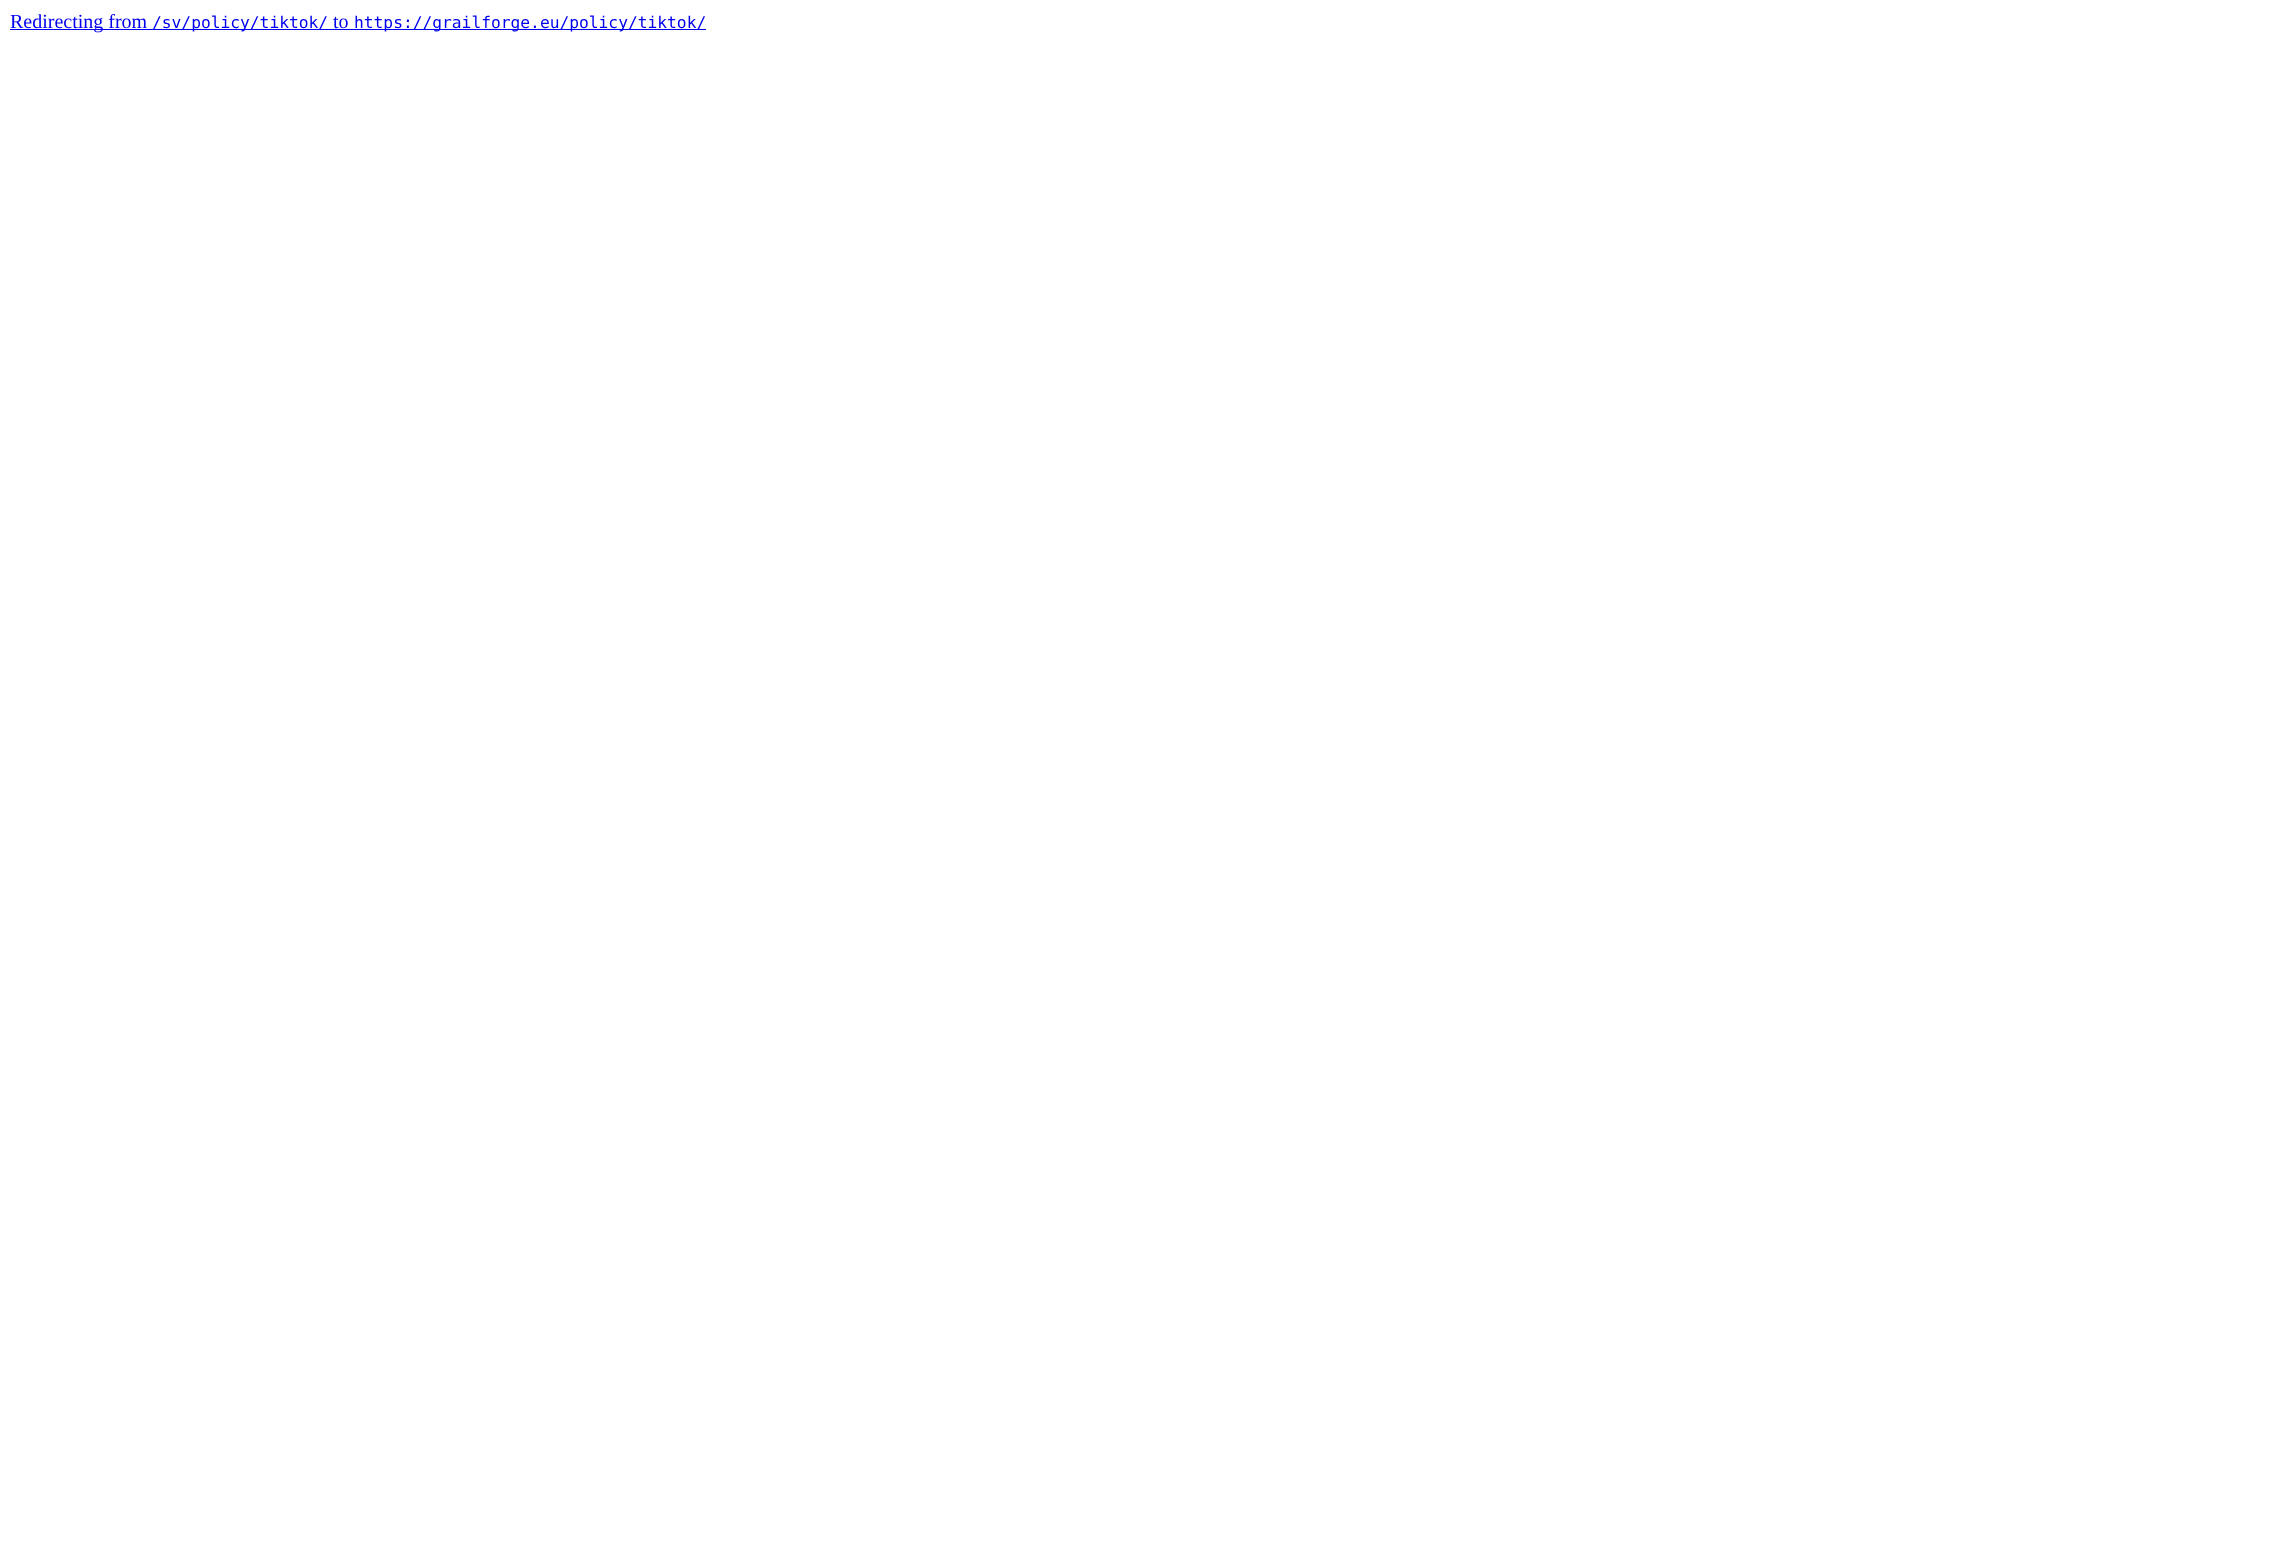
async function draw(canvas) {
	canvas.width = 2294;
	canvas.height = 1557;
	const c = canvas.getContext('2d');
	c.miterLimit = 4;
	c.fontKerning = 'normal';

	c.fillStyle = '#fff';
	c.fillRect(0, 0, 2294, 1557);
	c.fillStyle = '#00e';
	c.fillRect(10, 29, 696, 1);
	c.font = '20px Liberation Serif';
	c.fillText('Redirecting from', 10, 28);
	c.font = '16.25px DejaVu Sans Mono';
	c.fillText('/sv/policy/tiktok/', 152, 28);
	c.font = '20px Liberation Serif';
	c.fillText('to', 333, 28);
	c.font = '16.25px DejaVu Sans Mono';
	c.fillText('https://grailforge.eu/policy/tiktok/', 354, 28);
}

draw(document.querySelector('canvas'));
